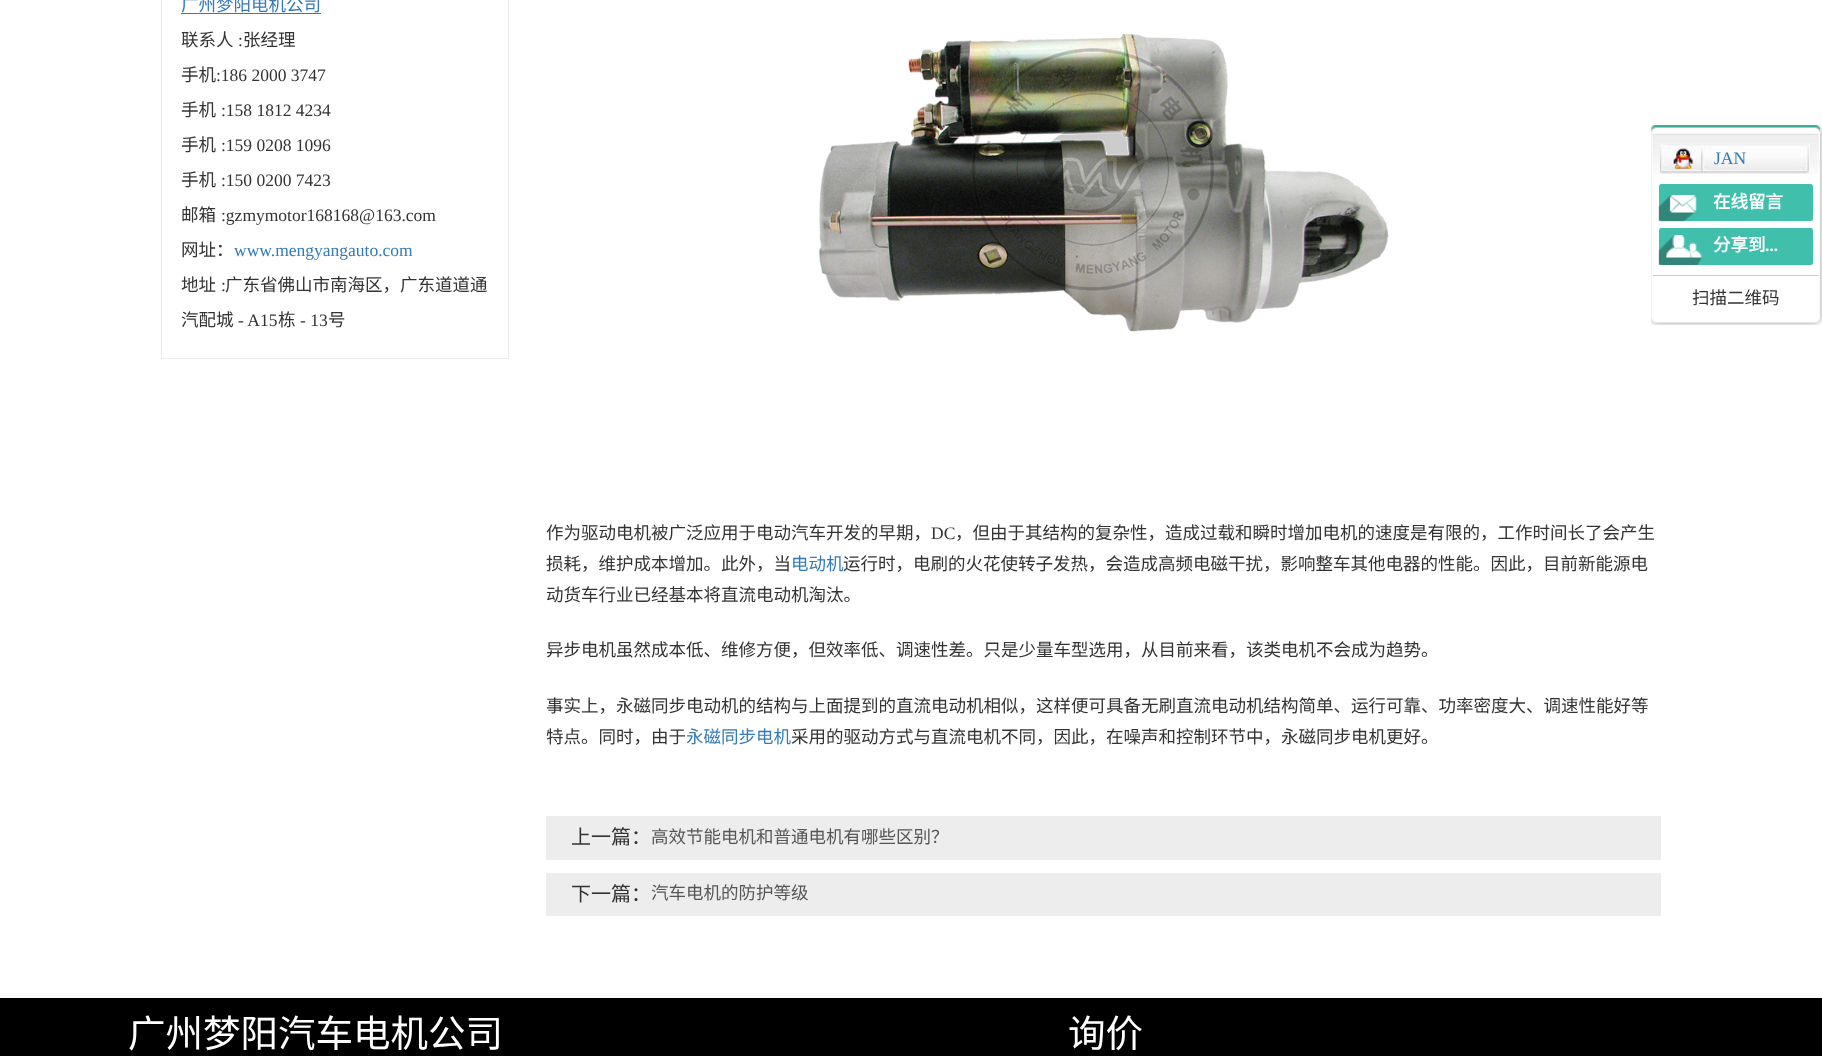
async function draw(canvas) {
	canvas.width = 1822;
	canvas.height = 1056;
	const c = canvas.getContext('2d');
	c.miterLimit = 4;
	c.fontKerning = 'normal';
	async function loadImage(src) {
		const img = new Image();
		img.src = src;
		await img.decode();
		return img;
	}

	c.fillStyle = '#fff';
	c.fillRect(0, 0, 1822, 1056);
	c.strokeStyle = '#ebebeb';
	c.strokeRect(161.5, -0.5, 347, 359);
	c.font = '17.5px Noto Sans CJK SC';
	c.fillStyle = '#337ab7';
	c.fillText('广州梦阳电机公司', 181, 11);
	c.fillRect(181, 13, 140, 1);
	c.fillStyle = '#333';
	c.fillText('联系人', 181, 46);
	c.font = '17.5px Liberation Serif';
	c.fillText(':', 238, 46);
	c.font = '17.5px Noto Sans CJK SC';
	c.fillText('张经理', 243, 46);
	c.fillText('手机', 181, 81);
	c.font = '17.5px Liberation Serif';
	c.fillText(':186 2000 3747', 216, 81);
	c.font = '17.5px Noto Sans CJK SC';
	c.fillText('手机', 181, 116);
	c.font = '17.5px Liberation Serif';
	c.fillText(':158 1812 4234', 221, 116);
	c.font = '17.5px Noto Sans CJK SC';
	c.fillText('手机', 181, 151);
	c.font = '17.5px Liberation Serif';
	c.fillText(':159 0208 1096', 221, 151);
	c.font = '17.5px Noto Sans CJK SC';
	c.fillText('手机', 181, 186);
	c.font = '17.5px Liberation Serif';
	c.fillText(':150 0200 7423', 221, 186);
	c.font = '17.5px Noto Sans CJK SC';
	c.fillText('邮箱', 181, 221);
	c.font = '17.5px Liberation Serif';
	c.fillText(':gzmymotor168168@163.com', 221, 221);
	c.font = '17.5px Noto Sans CJK SC';
	c.fillText('网址：', 181, 256);
	c.font = '17.5px Liberation Serif';
	c.fillStyle = '#337ab7';
	c.fillText('www.mengyangauto.com', 234, 256);
	c.font = '17.5px Noto Sans CJK SC';
	c.fillStyle = '#333';
	c.fillText('地址', 181, 291);
	c.font = '17.5px Liberation Serif';
	c.fillText(':', 221, 291);
	c.font = '17.5px Noto Sans CJK SC';
	c.fillText('广东省佛山市南海区，广东道道通', 225, 291);
	c.fillText('汽配城', 181, 326);
	c.font = '17.5px Liberation Serif';
	c.fillText('- A15', 238, 326);
	c.font = '17.5px Noto Sans CJK SC';
	c.fillText('栋', 278, 326);
	c.font = '17.5px Liberation Serif';
	c.fillText('- 13', 300, 326);
	c.font = '17.5px Noto Sans CJK SC';
	c.fillText('号', 328, 326);
	c.drawImage(await loadImage('img1.png'), 818, 34, 571, 298);
	c.fillText('作为驱动电机被广泛应用于电动汽车开发的早期，', 546, 539);
	c.font = '17.5px Liberation Serif';
	c.fillText('DC', 931, 539);
	c.font = '17.5px Noto Sans CJK SC';
	c.fillText('，但由于其结构的复杂性，造成过载和瞬时增加电机的速度是有限的，工作时间长了会产生', 955, 539);
	c.fillText('损耗，维护成本增加。此外，当', 546, 570);
	c.fillStyle = '#337ab7';
	c.fillText('电动机', 791, 570);
	c.fillStyle = '#333';
	for (const [text, x, y] of [
		['运行时，电刷的火花使转子发热，会造成高频电磁干扰，影响整车其他电器的性能。因此，目前新能源电', 843, 570],
		['动货车行业已经基本将直流电动机淘汰。', 546, 601],
		['异步电机虽然成本低、维修方便，但效率低、调速性差。只是少量车型选用，从目前来看，该类电机不会成为趋势。', 546, 656],
		['事实上，永磁同步电动机的结构与上面提到的直流电动机相似，这样便可具备无刷直流电动机结构简单、运行可靠、功率密度大、调速性能好等', 546, 712],
		['特点。同时，由于', 546, 743],
	]) {
		c.fillText(text, x, y);
	}
	c.fillStyle = '#337ab7';
	c.fillText('永磁同步电机', 686, 743);
	c.fillStyle = '#333';
	c.fillText('采用的驱动方式与直流电机不同，因此，在噪声和控制环节中，永磁同步电机更好。', 791, 743);
	c.fillStyle = '#ededed';
	c.fillRect(546, 816, 1115, 44);
	c.font = '20px Noto Sans CJK SC';
	c.fillStyle = '#333';
	c.fillText('上一篇：', 571, 844);
	c.font = '17.5px Noto Sans CJK SC';
	c.fillStyle = '#565656';
	c.fillText('高效节能电机和普通电机有哪些区别？', 651, 843);
	c.fillStyle = '#ededed';
	c.fillRect(546, 873, 1115, 43);
	c.font = '20px Noto Sans CJK SC';
	c.fillStyle = '#333';
	c.fillText('下一篇：', 571, 901);
	c.font = '17.5px Noto Sans CJK SC';
	c.fillStyle = '#565656';
	c.fillText('汽车电机的防护等级', 651, 899);
	c.drawImage(await loadImage('img2.png'), 1651, 125, 171, 9);
	c.drawImage(await loadImage('img3.png'), 1651, 133, 171, 182);
	c.drawImage(await loadImage('img4.png'), 1652, 133, 167, 41);
	c.drawImage(await loadImage('img5.png'), 1660, 144, 150, 30);
	c.drawImage(await loadImage('img6.png'), 1673, 148, 20, 21);
	c.font = '17.5px Liberation Serif';
	c.fillStyle = '#337ab7';
	c.fillText('JAN', 1714, 164);
	c.fillStyle = '#40c0ac';
	c.beginPath();
	c.roundRect(1659, 184, 154, 37, 2.5);
	c.fill();
	c.drawImage(await loadImage('img7.png'), 1658, 195, 39, 27);
	c.font = 'bold 17.5px Noto Sans CJK SC';
	c.fillStyle = '#fff';
	c.fillText('在线留言', 1713, 208);
	c.fillStyle = '#40c0ac';
	c.beginPath();
	c.roundRect(1659, 228, 154, 37, 2.5);
	c.fill();
	c.drawImage(await loadImage('img8.png'), 1658, 235, 44, 30);
	c.fillStyle = '#fff';
	c.fillText('分享到', 1713, 251);
	c.font = 'bold 17.5px Liberation Serif';
	c.fillText('...', 1765, 251);
	c.fillStyle = '#ccc';
	c.fillRect(1653, 275, 166, 1);
	c.font = '17.5px Noto Sans CJK SC';
	c.fillStyle = '#333';
	c.fillText('扫描二维码', 1692, 304);
	c.drawImage(await loadImage('img9.png'), 1651, 315, 171, 10);
	c.fillStyle = '#000';
	c.fillRect(0, 998, 1822, 58);
	c.font = '37.5px Noto Sans CJK SC';
	c.fillStyle = '#fff';
	c.fillText('广州梦阳汽车电机公司', 128, 1047);
	c.fillText('询价', 1068, 1047);
}

draw(document.querySelector('canvas'));
